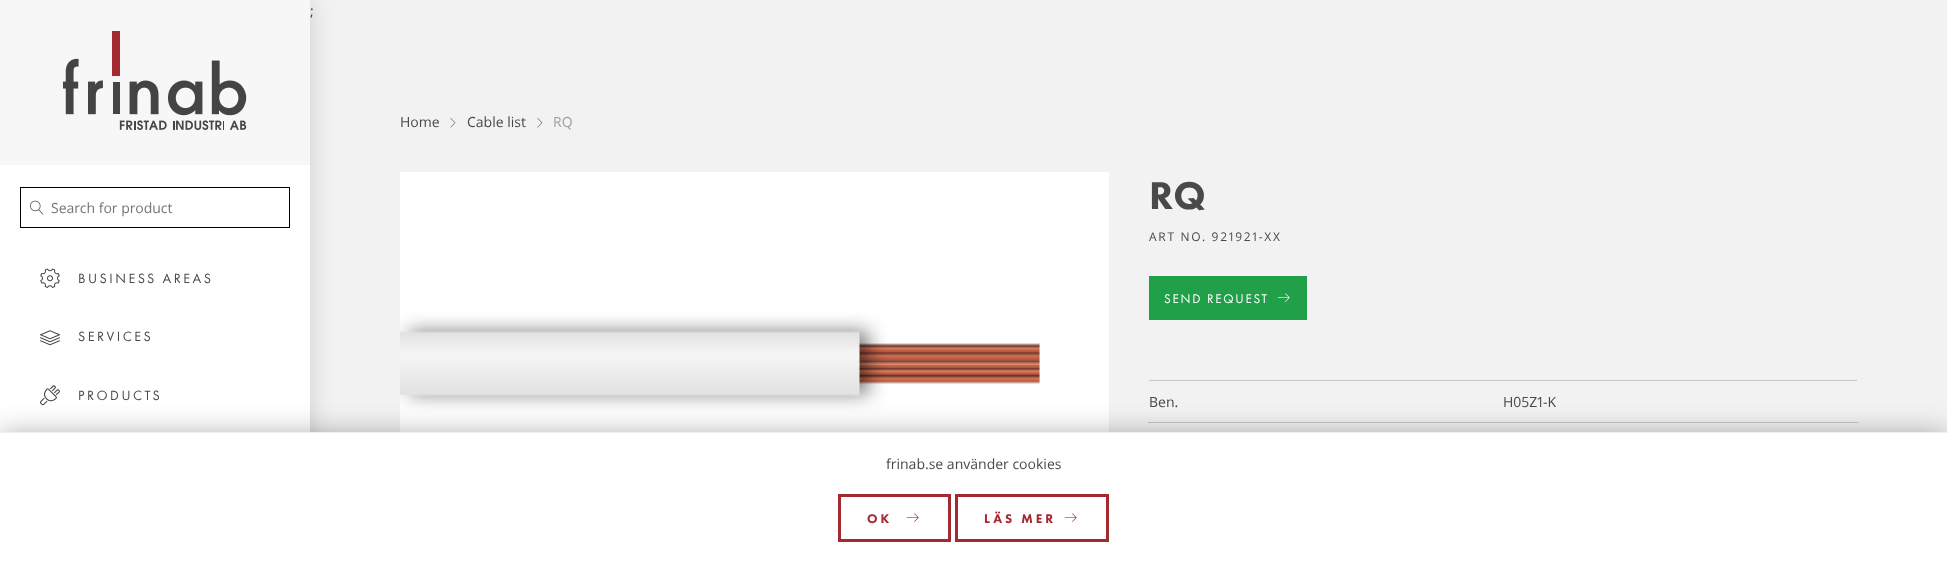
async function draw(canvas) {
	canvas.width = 1947;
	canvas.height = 562;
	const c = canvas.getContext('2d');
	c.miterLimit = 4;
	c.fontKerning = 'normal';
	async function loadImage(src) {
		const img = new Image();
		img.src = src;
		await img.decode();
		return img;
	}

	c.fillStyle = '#f2f2f2';
	c.fillRect(0, 0, 1947, 562);
	c.font = '14px Open Sans';
	c.fillStyle = '#494949';
	c.fillText(';', 310, 16);
	c.fillStyle = '#00000026';
	c.filter = 'blur(12.5px)';
	c.beginPath();
	c.rect(0, 0, 310, 562);
	c.fill();
	c.filter = 'none';
	c.fillStyle = '#fff';
	c.fillRect(0, 165, 310, 267);
	c.fillStyle = '#f7f7f7';
	c.fillRect(0, 0, 310, 165);
	c.drawImage(await loadImage('img1.png'), 63, 31, 184, 99);
	c.strokeStyle = '#000';
	c.strokeRect(20.5, 187.5, 269, 40);
	c.drawImage(await loadImage('img2.png'), 30, 200, 14, 15);
	c.fillStyle = '#757575';
	c.fillText('Search for product', 51, 213);
	c.drawImage(await loadImage('img3.png'), 40, 268, 20, 20);
	c.letterSpacing = '2.5px';
	c.font = '14px Futura PT';
	c.fillStyle = '#494949';
	c.fillText('BUSINESS AREAS', 78, 283);
	c.drawImage(await loadImage('img4.png'), 40, 330, 20, 16);
	c.fillText('SERVICES', 78, 341);
	c.drawImage(await loadImage('img5.png'), 40, 385, 20, 21);
	c.fillText('PRODUCTS', 78, 400);
	c.letterSpacing = '0px';
	c.font = '14px Open Sans';
	c.fillText('Home', 400, 127);
	c.drawImage(await loadImage('img6.png'), 450, 118, 6, 10);
	c.fillText('Cable list', 467, 127);
	c.drawImage(await loadImage('img6.png'), 537, 118, 6, 10);
	c.fillStyle = '#9e9e9e';
	c.fillText('RQ', 553, 127);
	c.drawImage(await loadImage('img7.png'), 400, 172, 709, 260);
	c.font = '900 40px Futura PT';
	c.fillStyle = '#494949';
	c.fillText('RQ', 1149, 209);
	c.letterSpacing = '1.7px';
	c.font = '12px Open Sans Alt';
	c.fillText('ART NO. 921921-XX', 1149, 241);
	c.fillStyle = '#21a04a';
	c.fillRect(1149, 276, 158, 44);
	c.letterSpacing = '1.75px';
	c.font = '13px Futura PT';
	c.fillStyle = '#fff';
	c.fillText('SEND REQUEST', 1164, 303);
	c.drawImage(await loadImage('img8.png'), 1277, 293, 13, 9);
	c.fillStyle = '#c6c6c6';
	c.fillRect(1149, 380, 708, 1);
	c.letterSpacing = '0px';
	c.font = '14px Open Sans';
	c.fillStyle = '#494949';
	c.fillText('Ben.', 1149, 407);
	c.fillStyle = '#c6c6c6';
	c.fillRect(1148, 422, 710, 1);
	c.font = '14px Open Sans Alt';
	c.fillStyle = '#494949';
	c.fillText('H05Z1-K', 1503, 407);
	c.fillStyle = '#00000066';
	c.filter = 'blur(15.5px)';
	c.beginPath();
	c.rect(0, 437, 1947, 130);
	c.fill();
	c.filter = 'none';
	c.fillStyle = '#fff';
	c.fillRect(0, 433, 1947, 129);
	c.fillStyle = '#efefef';
	c.fillRect(0, 432, 1947, 1);
	c.font = '14px Open Sans';
	c.fillStyle = '#494949';
	c.fillText('frinab.se använder cookies', 886, 469);
	c.strokeStyle = '#a42a32';
	c.lineWidth = 3;
	c.strokeRect(839.5, 495.5, 110, 45);
	c.letterSpacing = '3px';
	c.font = '900 13px Futura PT';
	c.fillStyle = '#a42a32';
	c.fillText('OK', 867, 523);
	c.drawImage(await loadImage('img9.png'), 906, 513, 13, 9);
	c.strokeRect(956.5, 495.5, 151, 45);
	c.fillText('LÄS MER', 984, 523);
	c.drawImage(await loadImage('img9.png'), 1064, 513, 13, 9);
}

draw(document.querySelector('canvas'));
